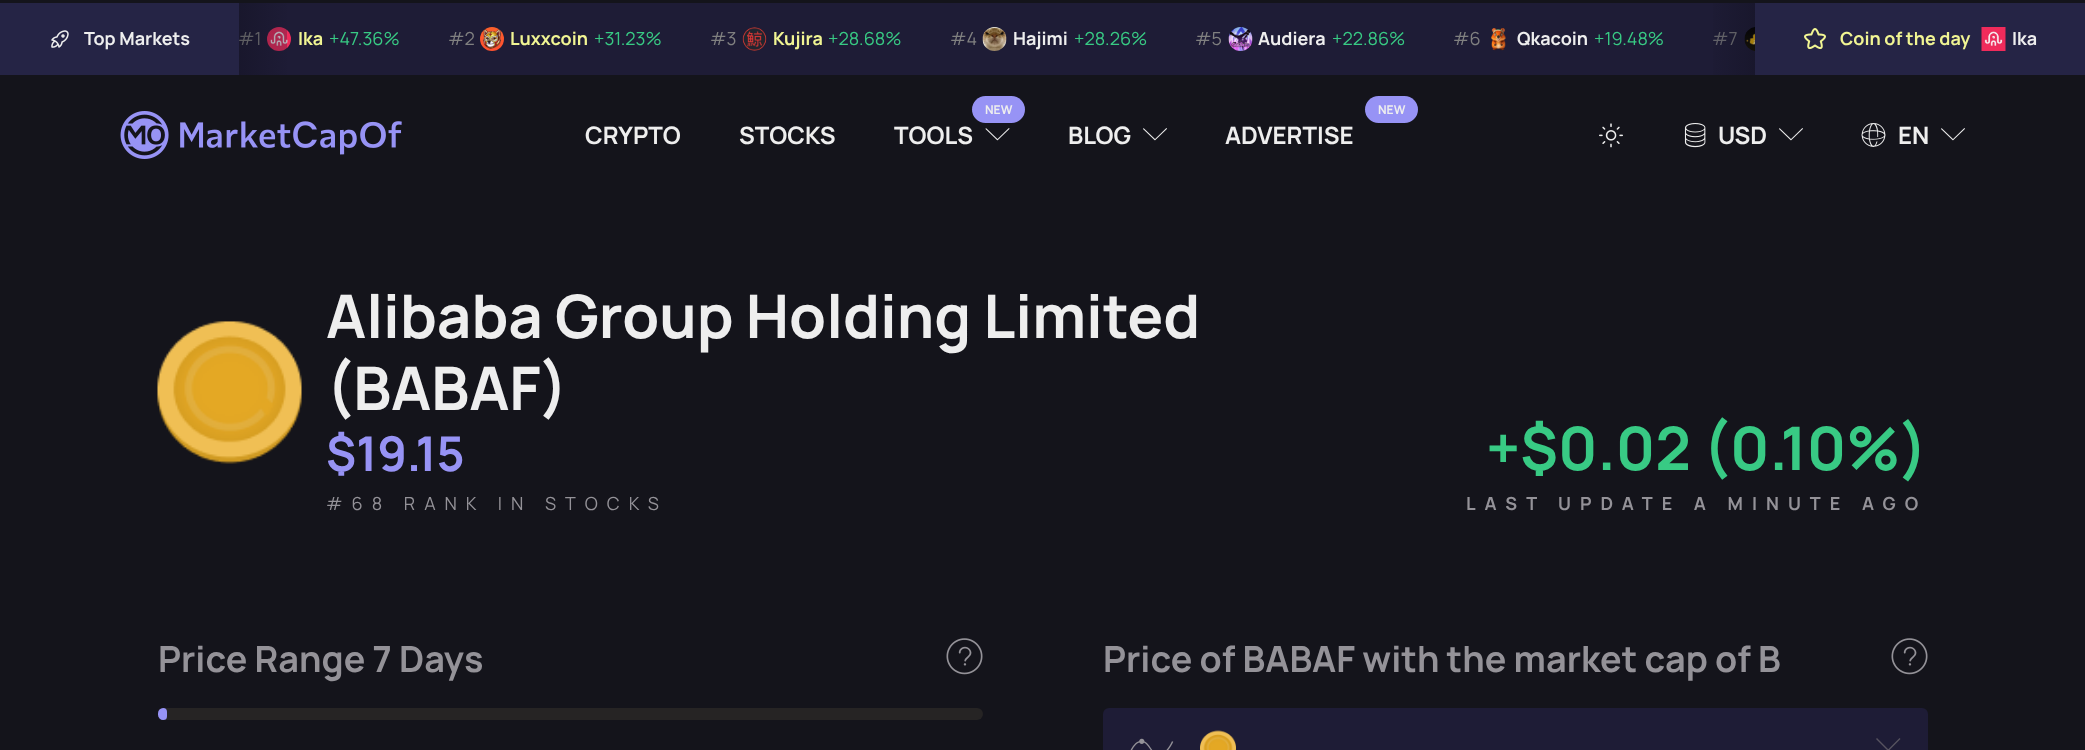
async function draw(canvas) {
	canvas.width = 2085;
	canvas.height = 750;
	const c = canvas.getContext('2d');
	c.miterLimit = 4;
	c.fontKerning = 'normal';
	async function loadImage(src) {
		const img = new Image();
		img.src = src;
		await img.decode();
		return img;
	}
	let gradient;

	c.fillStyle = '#14141b';
	c.fillRect(0, 0, 2085, 750);
	c.fillStyle = '#252445';
	c.fillRect(0, 3, 2085, 72);
	c.drawImage(await loadImage('img1.png'), 51, 30, 18, 18);
	c.font = '200 18px "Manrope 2"';
	c.fillStyle = '#eee';
	c.fillText('Top Markets', 84, 45);
	c.fillStyle = '#1e1c36';
	c.fillRect(239, 3, 1516, 72);
	c.font = '200 18px Manrope';
	c.fillStyle = '#808080';
	c.fillText('#1', 238, 45);
	c.drawImage(await loadImage('img2.png'), 267, 27, 24, 24);
	gradient = c.createLinearGradient(239, 39, 290, 39);
	gradient.addColorStop(0, '#0c0b164d');
	gradient.addColorStop(1, '#1e1c364d');
	c.fillStyle = gradient;
	c.fillRect(239, 3, 48, 72);
	c.font = '200 18px "Manrope 2"';
	c.fillStyle = '#f1f593';
	c.fillText('Ika', 298, 45);
	c.font = '200 18px Manrope';
	c.fillStyle = '#38ca84';
	c.fillText('+47.36%', 329, 45);
	c.fillStyle = '#808080';
	c.fillText('#2', 448, 45);
	c.drawImage(await loadImage('img3.png'), 480, 27, 24, 24);
	c.font = '200 18px "Manrope 2"';
	c.fillStyle = '#f1f593';
	c.fillText('Luxxcoin', 510, 45);
	c.font = '200 18px Manrope';
	c.fillStyle = '#38ca84';
	c.fillText('+31.23%', 594, 45);
	c.fillStyle = '#808080';
	c.fillText('#3', 710, 45);
	c.drawImage(await loadImage('img4.png'), 742, 27, 25, 24);
	c.font = '200 18px "Manrope 2"';
	c.fillStyle = '#f1f593';
	c.fillText('Kujira', 773, 45);
	c.font = '200 18px Manrope';
	c.fillStyle = '#38ca84';
	c.fillText('+28.68%', 828, 45);
	c.fillStyle = '#808080';
	c.fillText('#4', 950, 45);
	c.drawImage(await loadImage('img5.png'), 982, 27, 25, 24);
	c.font = '200 18px "Manrope 2"';
	c.fillStyle = '#eee';
	c.fillText('Hajimi', 1013, 45);
	c.font = '200 18px Manrope';
	c.fillStyle = '#38ca84';
	c.fillText('+28.26%', 1074, 45);
	c.fillStyle = '#808080';
	c.fillText('#5', 1195, 45);
	c.drawImage(await loadImage('img6.png'), 1228, 27, 25, 24);
	c.font = '200 18px "Manrope 2"';
	c.fillStyle = '#eee';
	c.fillText('Audiera', 1258, 45);
	c.font = '200 18px Manrope';
	c.fillStyle = '#38ca84';
	c.fillText('+22.86%', 1332, 45);
	c.fillStyle = '#808080';
	c.fillText('#6', 1453, 45);
	c.drawImage(await loadImage('img7.png'), 1491, 28, 15, 23);
	c.font = '200 18px "Manrope 2"';
	c.fillStyle = '#eee';
	c.fillText('Qkacoin', 1517, 45);
	c.font = '200 18px Manrope';
	c.fillStyle = '#38ca84';
	c.fillText('+19.48%', 1594, 45);
	c.fillStyle = '#808080';
	c.fillText('#7', 1712, 45);
	c.drawImage(await loadImage('img8.png'), 1744, 27, 11, 24);
	gradient = c.createLinearGradient(1756, 39, 1705, 39);
	gradient.addColorStop(0, '#0c0b164d');
	gradient.addColorStop(1, '#1e1c364d');
	c.fillStyle = gradient;
	c.fillRect(1713, 3, 42, 72);
	c.drawImage(await loadImage('img9.png'), 1804, 28, 22, 22);
	c.font = '200 18px "Manrope 2"';
	c.fillStyle = '#f1f593';
	c.fillText('Coin of the day', 1840, 45);
	c.drawImage(await loadImage('img10.png'), 1981, 27, 25, 24);
	c.fillStyle = '#eee';
	c.fillText('Ika', 2012, 45);
	c.drawImage(await loadImage('img11.png'), 120, 111, 282, 48);
	c.font = '200 24px "Manrope 2"';
	c.fillText('CRYPTO', 585, 144);
	c.fillText('STOCKS', 739, 144);
	c.fillStyle = '#9793f5';
	c.beginPath();
	c.roundRect(972, 96, 53, 27, 13.5);
	c.fill();
	c.font = '200 12px "Manrope 2"';
	c.fillStyle = '#eee';
	c.fillText('NEW', 985, 114);
	c.font = '200 24px "Manrope 2"';
	c.fillText('TOOLS', 894, 144);
	c.drawImage(await loadImage('img12.png'), 985, 128, 25, 13);
	c.fillText('BLOG', 1068, 144);
	c.drawImage(await loadImage('img13.png'), 1143, 128, 24, 13);
	c.fillStyle = '#9793f5';
	c.beginPath();
	c.roundRect(1365, 96, 53, 27, 13.5);
	c.fill();
	c.font = '200 12px "Manrope 2"';
	c.fillStyle = '#eee';
	c.fillText('NEW', 1378, 114);
	c.font = '200 24px "Manrope 2"';
	c.fillText('ADVERTISE', 1225, 144);
	c.drawImage(await loadImage('img14.png'), 1599, 123, 24, 25);
	c.drawImage(await loadImage('img15.png'), 1684, 123, 22, 25);
	c.fillText('USD', 1718, 144);
	c.drawImage(await loadImage('img13.png'), 1779, 128, 24, 13);
	c.drawImage(await loadImage('img16.png'), 1861, 123, 25, 24);
	c.fillText('EN', 1898, 144);
	c.drawImage(await loadImage('img13.png'), 1941, 128, 24, 13);
	c.drawImage(await loadImage('img17.png'), 157, 321, 145, 143);
	c.font = '200 60px "Manrope 2"';
	c.fillText('Alibaba Group Holding Limited', 326, 338);
	c.fillText('(BABAF)', 326, 410);
	c.font = '200 48px "Manrope 2"';
	c.fillStyle = '#9793f5';
	c.fillText('$19.15', 326, 471);
	c.letterSpacing = '9px';
	c.font = '200 18px Manrope';
	c.fillStyle = '#949298';
	c.fillText('#68 RANK IN STOCKS', 326, 510);
	c.letterSpacing = '0px';
	c.font = '200 60px "Manrope 2"';
	c.fillStyle = '#38ca84';
	c.fillText('+$0.02 (0.10%)', 1486, 470);
	c.letterSpacing = '9px';
	c.font = '200 18px "Manrope 2"';
	c.fillStyle = '#949298';
	c.fillText('LAST UPDATE A MINUTE AGO', 1466, 510);
	c.letterSpacing = '0px';
	c.font = '200 36px "Manrope 2"';
	c.fillText('Price Range 7 Days', 158, 672);
	c.drawImage(await loadImage('img18.png'), 946, 638, 37, 37);
	c.fillStyle = '#262424';
	c.beginPath();
	c.roundRect(158, 708, 825, 12, 6);
	c.fill();
	c.fillStyle = '#9793f5';
	c.beginPath();
	c.roundRect(158, 708, 9, 12, [6, 4.5, 4.5, 6]);
	c.fill();
	c.fillStyle = '#949298';
	c.fillText('Price of BABAF with the market cap of B', 1103, 672);
	c.drawImage(await loadImage('img18.png'), 1891, 638, 37, 37);
	c.fillStyle = '#1e1c36';
	c.beginPath();
	c.roundRect(1103, 708, 825, 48, 6);
	c.fill();
	c.drawImage(await loadImage('img19.png'), 1130, 738, 44, 12);
	c.drawImage(await loadImage('img20.png'), 1200, 730, 36, 20);
	c.fillStyle = '#56525f';
	c.beginPath();
	c.moveTo(1877, 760.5);
	c.lineTo(1899.5, 738);
	c.lineTo(1900.5, 739);
	c.lineTo(1878, 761.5);
	c.closePath();
	c.moveTo(1876, 739);
	c.lineTo(1877, 738);
	c.lineTo(1899.5, 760.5);
	c.lineTo(1898.5, 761.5);
	c.closePath();
	c.fill();
}

draw(document.querySelector('canvas'));
